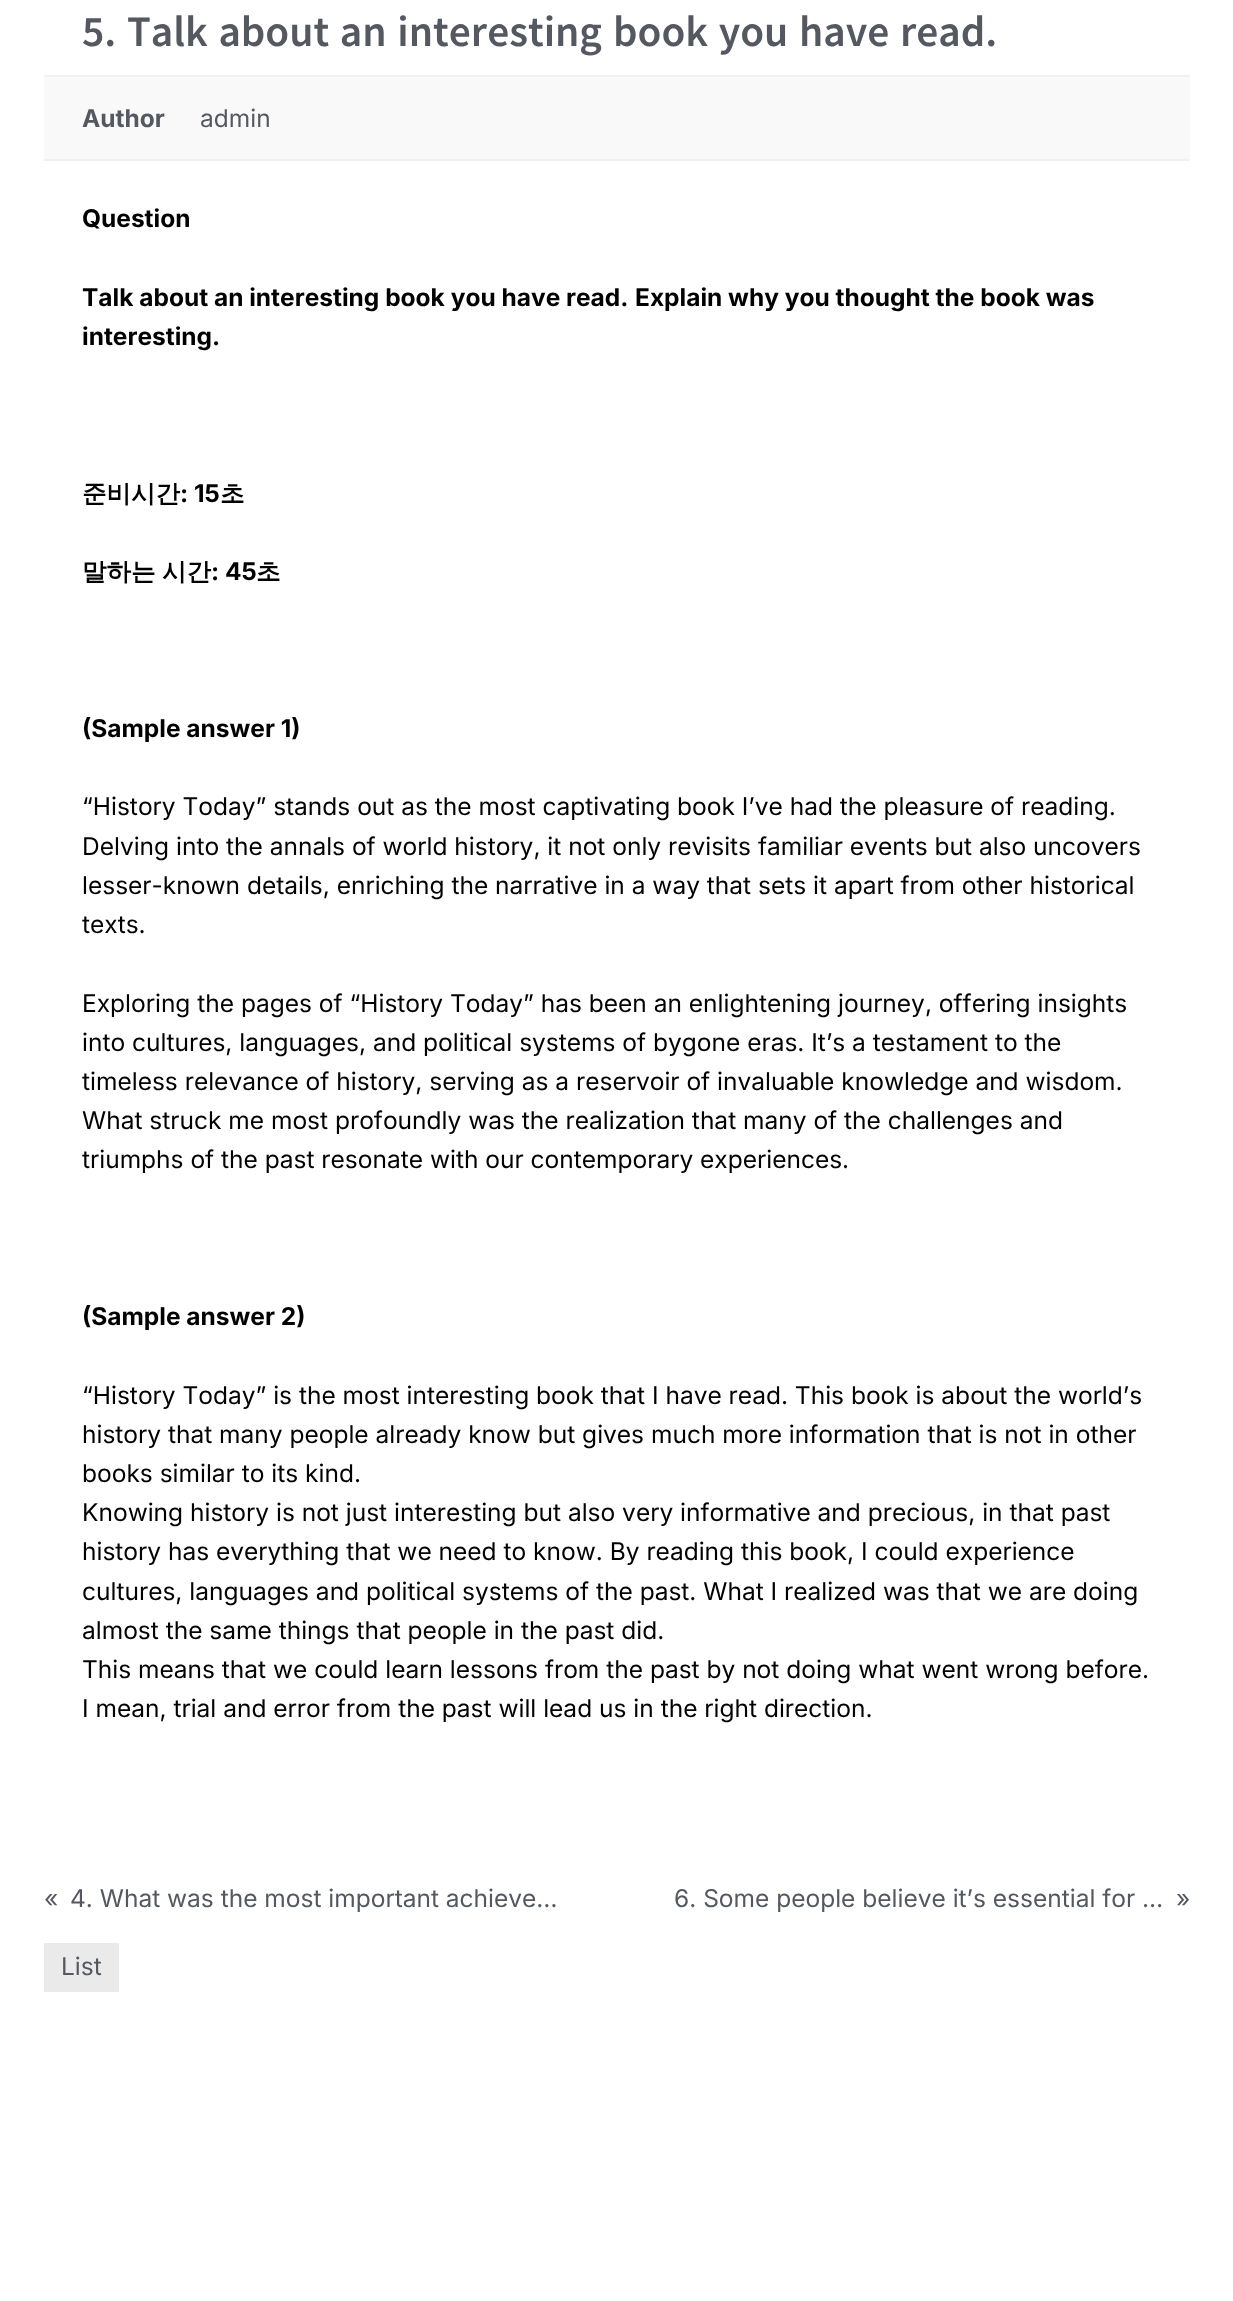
async function draw(canvas) {
	canvas.width = 1233;
	canvas.height = 2301;
	const c = canvas.getContext('2d');
	c.miterLimit = 4;
	c.fontKerning = 'none';

	c.fillStyle = '#fff';
	c.fillRect(0, 0, 1233, 2301);
	c.wordSpacing = '2px';
	c.font = '600 38.5px Noto Sans KR';
	c.fillStyle = '#545861';
	c.fillText('5. Talk about an interesting', 82, 46);
	c.fillText('book you have read.', 613, 46);
	for (const [x, y, w, h, color] of [
		[44, 77, 1146, 82, '#f9f9f9'],
		[44, 75, 1146, 2, '#f1f1f1'],
		[44, 159, 1146, 2, '#f1f1f1'],
	]) {
		c.fillStyle = color;
		c.fillRect(x, y, w, h);
	}
	c.wordSpacing = '0px';
	c.font = 'bold 24.5px Inter';
	c.fillStyle = '#545861';
	c.fillText('Author', 82, 127);
	c.font = '24.5px Inter';
	c.fillText('admin', 200, 127);
	c.font = 'bold 24.5px Inter';
	c.fillStyle = '#000';
	for (const [text, x, y] of [
		['Question', 82, 227],
		['Talk about an interesting book you have read.', 82, 306],
		['Explain why you thought the book was', 635, 306],
		['interesting.', 82, 345],
	]) {
		c.fillText(text, x, y);
	}
	c.font = 'bold 24.5px WenQuanYi Zen Hei';
	c.fillText('준비시간', 82, 502);
	c.font = 'bold 24.5px Inter';
	c.fillText(': 15', 180, 502);
	c.font = 'bold 24.5px WenQuanYi Zen Hei';
	for (const [text, x, y] of [
		['초', 220, 502],
		['말하는', 82, 580],
		['시간', 162, 580],
	]) {
		c.fillText(text, x, y);
	}
	c.font = 'bold 24.5px Inter';
	c.fillText(': 45', 211, 580);
	c.font = 'bold 24.5px WenQuanYi Zen Hei';
	c.fillText('초', 256, 580);
	c.font = 'bold 24.5px Inter';
	c.fillText('(Sample answer 1)', 82, 737);
	c.font = '24.5px Inter';
	for (const [text, x, y] of [
		['“History Today” stands out as the most captivating book I’ve had the pleasure of reading.', 82, 815],
		['Delving into the annals of world history, it not only revisits familiar events but also uncovers', 82, 855],
		['lesser-known details, enriching the narrative in a way that sets it apart from other historical', 82, 894],
		['texts.', 82, 933],
		['Exploring the pages of “History Today” has been an enlightening journey, offering insights', 82, 1012],
		['into cultures, languages, and political systems of bygone eras. It’s a testament to the', 82, 1051],
		['timeless relevance of history, serving as a reservoir of invaluable knowledge and wisdom.', 82, 1090],
		['What struck me most profoundly was the realization that many of the challenges and', 82, 1129],
		['triumphs of the past resonate with our contemporary experiences.', 82, 1168],
	]) {
		c.fillText(text, x, y);
	}
	c.font = 'bold 24.5px Inter';
	c.fillText('(Sample answer 2)', 82, 1325);
	c.font = '24.5px Inter';
	for (const [text, x, y] of [
		['“History Today” is the most interesting book that I have read. This book is about the world’s', 82, 1404],
		['history that many people already know but gives much more information that is not in other', 82, 1443],
		['books similar to its kind.', 82, 1482],
		['Knowing history is not just interesting but also very informative and precious, in that past', 82, 1521],
		['history has everything that we need to know. By reading this book, I could experience', 82, 1560],
		['cultures, languages and political systems of the past. What I realized was that we are doing', 82, 1600],
		['almost the same things that people in the past did.', 82, 1639],
		['This means that we could learn lessons from the past by not doing what went wrong before.', 82, 1678],
		['I mean, trial and error from the past will lead us in the right direction.', 82, 1717],
	]) {
		c.fillText(text, x, y);
	}
	c.fillStyle = '#545861';
	for (const [text, x, y] of [
		['«', 44, 1907],
		['4. What was the most important achieve…', 70, 1907],
		['6. Some people believe it’s essential for', 674, 1907],
		['…', 1142, 1907],
		['»', 1176, 1907],
	]) {
		c.fillText(text, x, y);
	}
	c.fillStyle = '#eaeaea';
	c.fillRect(44, 1943, 75, 49);
	c.fillStyle = '#545861';
	c.fillText('List', 61, 1975);
}

draw(document.querySelector('canvas'));
